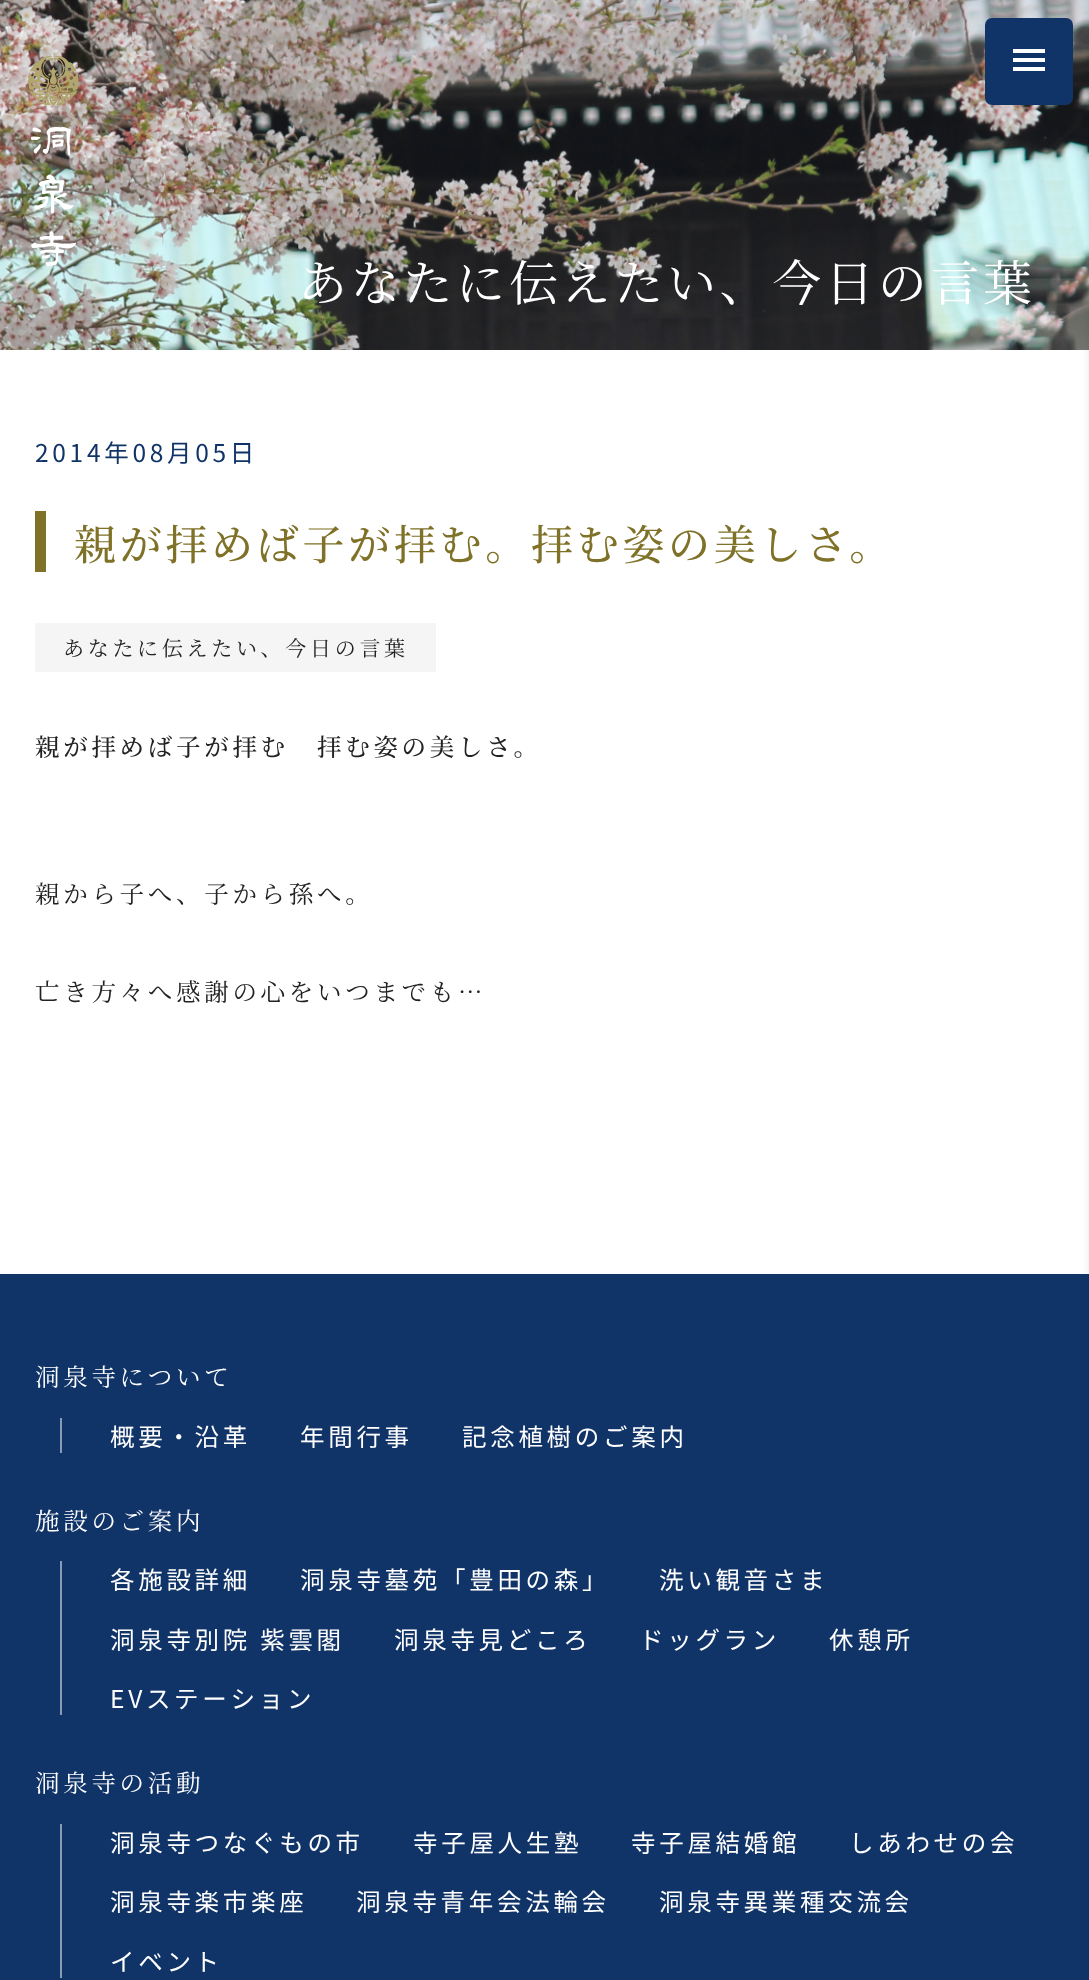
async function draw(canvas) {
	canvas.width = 1089;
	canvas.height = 1980;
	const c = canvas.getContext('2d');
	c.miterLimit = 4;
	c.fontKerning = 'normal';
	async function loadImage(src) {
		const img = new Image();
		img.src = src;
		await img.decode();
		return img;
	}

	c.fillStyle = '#fff';
	c.fillRect(0, 0, 1089, 1980);
	c.drawImage(await loadImage('img2.png'), 0, 0, 1089, 350);
	c.drawImage(await loadImage('img1.png'), 28, 56, 51, 210);
	c.fillStyle = '#113468';
	c.beginPath();
	c.roundRect(985, 18, 88, 87, 7);
	c.fill();
	for (const [x, y, w, h, color] of [
		[1013, 49, 32, 4, '#fff'],
		[1013, 58, 32, 4, '#fff'],
		[1013, 67, 32, 4, '#fff'],
		[0, 1274, 1089, 706, '#113468'],
	]) {
		c.fillStyle = color;
		c.fillRect(x, y, w, h);
	}
	c.fillStyle = '#0000001c';
	c.filter = 'blur(5px)';
	c.beginPath();
	c.rect(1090, 5, 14, 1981);
	c.fill();
	c.filter = 'none';
	c.letterSpacing = '3.7px';
	c.font = '49px Noto Serif JP';
	c.fillStyle = '#fff';
	c.fillText('あなたに伝えたい、今日の言葉', 298, 301);
	c.font = '100 24.5px Noto Sans JP';
	c.fillStyle = '#113468';
	c.fillText('2014年08月05日', 35, 462);
	c.fillStyle = '#7f7127';
	c.fillRect(35, 511, 11, 61);
	c.font = '500 42px Noto Serif JP';
	c.fillText('親が拝めば子が拝む。拝む姿の美しさ。', 74, 560);
	c.fillStyle = '#f5f5f5';
	c.fillRect(35, 623, 401, 49);
	c.font = '21px Noto Serif JP';
	c.fillStyle = '#222';
	c.fillText('あなたに伝えたい、今日の言葉', 63, 656);
	c.font = '500 24.5px Noto Serif JP';
	c.fillText('親が拝めば子が拝む　拝む姿の美しさ。', 35, 756);
	c.font = '24.5px Noto Serif JP';
	c.fillText('親から子へ、子から孫へ。', 35, 903);
	c.fillText('亡き方々へ感謝の心をいつまでも…', 35, 1001);
	c.fillStyle = '#fff';
	c.fillText('洞泉寺について', 35, 1386);
	c.fillStyle = '#889ab4';
	c.fillRect(60, 1418, 2, 35);
	c.font = '100 24.5px Noto Sans JP';
	c.fillStyle = '#fff';
	for (const [text, x, y] of [
		['概要・沿革', 110, 1446],
		['年間行事', 300, 1446],
		['記念植樹のご案内', 462, 1446],
	]) {
		c.fillText(text, x, y);
	}
	c.font = '24.5px Noto Serif JP';
	c.fillText('施設のご案内', 35, 1530);
	c.fillStyle = '#889ab4';
	c.fillRect(60, 1561, 2, 154);
	c.font = '100 24.5px Noto Sans JP';
	c.fillStyle = '#fff';
	for (const [text, x, y] of [
		['各施設詳細', 110, 1589],
		['洞泉寺墓苑「豊田の森」', 300, 1589],
		['洗い観音さま', 659, 1589],
		['洞泉寺別院 紫雲閣', 110, 1649],
		['洞泉寺見どころ', 394, 1649],
		['ドッグラン', 639, 1649],
		['休憩所', 829, 1649],
		['EVステーション', 110, 1708],
	]) {
		c.fillText(text, x, y);
	}
	c.font = '24.5px Noto Serif JP';
	c.fillText('洞泉寺の活動', 35, 1792);
	c.fillStyle = '#889ab4';
	c.fillRect(60, 1824, 2, 154);
	c.font = '100 24.5px Noto Sans JP';
	c.fillStyle = '#fff';
	for (const [text, x, y] of [
		['洞泉寺つなぐもの市', 110, 1852],
		['寺子屋人生塾', 413, 1852],
		['寺子屋結婚館', 631, 1852],
		['しあわせの会', 849, 1852],
		['洞泉寺楽市楽座', 110, 1911],
		['洞泉寺青年会法輪会', 356, 1911],
		['洞泉寺異業種交流会', 659, 1911],
		['イベント', 110, 1971],
	]) {
		c.fillText(text, x, y);
	}
}

draw(document.querySelector('canvas'));
